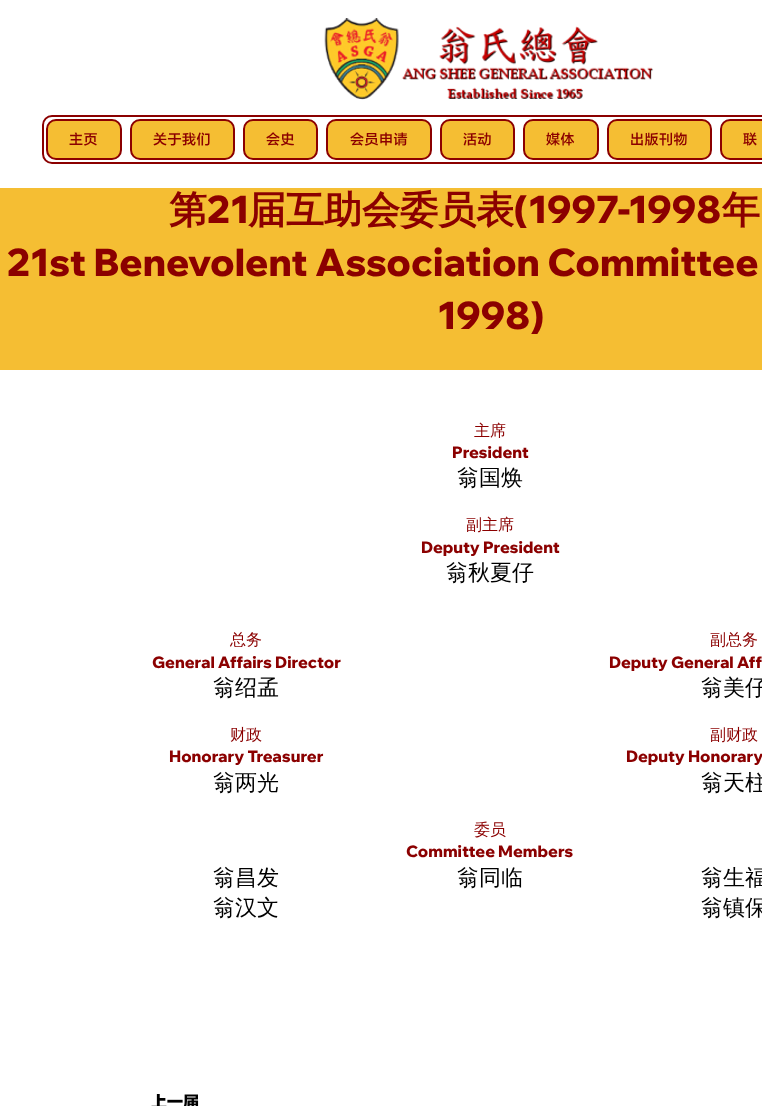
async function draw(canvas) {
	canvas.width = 762;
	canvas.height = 1106;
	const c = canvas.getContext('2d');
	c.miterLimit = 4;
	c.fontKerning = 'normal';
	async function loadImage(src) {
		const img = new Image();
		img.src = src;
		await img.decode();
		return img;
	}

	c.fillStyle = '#fff';
	c.fillRect(0, 0, 762, 1106);
	c.drawImage(await loadImage('img1.png'), 324, 18, 330, 82);
	c.beginPath();
	c.roundRect(43, 116, 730, 47, 9);
	c.strokeStyle = '#8b0000';
	c.lineWidth = 2;
	c.stroke();
	c.fillStyle = '#f5be33';
	c.beginPath();
	c.roundRect(47, 120, 74, 39, 9);
	c.fill();
	c.stroke();
	c.letterSpacing = '0.5px';
	c.font = '14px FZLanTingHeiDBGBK';
	c.fillStyle = '#8b0000';
	c.fillText('主页', 69, 144);
	c.fillStyle = '#f5be33';
	c.beginPath();
	c.roundRect(131, 120, 103, 39, 9);
	c.fill();
	c.stroke();
	c.fillStyle = '#8b0000';
	c.fillText('关于我们', 153, 144);
	c.fillStyle = '#f5be33';
	c.beginPath();
	c.roundRect(244, 120, 73, 39, 9);
	c.fill();
	c.stroke();
	c.fillStyle = '#8b0000';
	c.fillText('会史', 266, 144);
	c.fillStyle = '#f5be33';
	c.beginPath();
	c.roundRect(327, 120, 104, 39, 9);
	c.fill();
	c.stroke();
	c.fillStyle = '#8b0000';
	c.fillText('会员申请', 350, 144);
	c.fillStyle = '#f5be33';
	c.beginPath();
	c.roundRect(441, 120, 73, 39, 9);
	c.fill();
	c.stroke();
	c.fillStyle = '#8b0000';
	c.fillText('活动', 463, 144);
	c.fillStyle = '#f5be33';
	c.beginPath();
	c.roundRect(524, 120, 74, 39, 9);
	c.fill();
	c.stroke();
	c.fillStyle = '#8b0000';
	c.fillText('媒体', 546, 144);
	c.fillStyle = '#f5be33';
	c.beginPath();
	c.roundRect(608, 120, 103, 39, 9);
	c.fill();
	c.stroke();
	c.fillStyle = '#8b0000';
	c.fillText('出版刊物', 630, 144);
	c.fillStyle = '#f5be33';
	c.beginPath();
	c.roundRect(721, 120, 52, 39, 9);
	c.fill();
	c.stroke();
	c.fillStyle = '#8b0000';
	c.fillText('联', 743, 144);
	c.fillStyle = '#f5be33';
	c.fillRect(0, 188, 762, 182);
	c.letterSpacing = '0px';
	c.font = 'bold 38px WenQuanYi Zen Hei';
	c.fillStyle = '#8b0000';
	c.fillText('第', 169, 223);
	c.font = '800 38px Wix Madefor Display';
	c.fillText('21', 207, 223);
	c.font = 'bold 38px WenQuanYi Zen Hei';
	c.fillText('届互助会委员表', 248, 223);
	c.font = '800 38px Wix Madefor Display';
	c.fillText('(1997-1998', 514, 223);
	c.font = 'bold 38px WenQuanYi Zen Hei';
	c.fillText('年', 722, 223);
	c.font = '800 38px Wix Madefor Display';
	c.fillText('21st Benevolent Association Committee', 7, 276);
	c.fillText('1998)', 437, 329);
	c.font = '500 16px WenQuanYi Zen Hei';
	c.fillText('主席', 474, 436);
	c.font = '800 16px Wix Madefor Display';
	c.fillText('President', 452, 458);
	c.font = '500 22px WenQuanYi Zen Hei';
	c.fillStyle = '#000';
	c.fillText('翁国焕', 457, 485);
	c.font = '500 16px WenQuanYi Zen Hei';
	c.fillStyle = '#8b0000';
	c.fillText('副主席', 466, 530);
	c.font = '800 16px Wix Madefor Display';
	c.fillText('Deputy President', 421, 553);
	c.font = '500 22px WenQuanYi Zen Hei';
	c.fillStyle = '#000';
	c.fillText('翁秋夏仔', 446, 580);
	c.font = '500 16px WenQuanYi Zen Hei';
	c.fillStyle = '#8b0000';
	c.fillText('总务', 230, 645);
	c.font = '800 16px Wix Madefor Display';
	c.fillText('General Affairs Director', 152, 668);
	c.font = '500 16px WenQuanYi Zen Hei';
	c.fillText('副总务', 710, 645);
	c.font = '800 16px Wix Madefor Display';
	c.fillText('Deputy General Aff', 609, 668);
	c.font = '500 22px WenQuanYi Zen Hei';
	c.fillStyle = '#000';
	c.fillText('翁绍孟', 213, 695);
	c.fillText('翁美仔', 701, 695);
	c.font = '500 16px WenQuanYi Zen Hei';
	c.fillStyle = '#8b0000';
	c.fillText('财政', 230, 740);
	c.font = '800 16px Wix Madefor Display';
	c.fillText('Honorary Treasurer', 169, 762);
	c.font = '500 16px WenQuanYi Zen Hei';
	c.fillText('副财政', 710, 740);
	c.font = '800 16px Wix Madefor Display';
	c.fillText('Deputy Honorary', 626, 762);
	c.font = '500 22px WenQuanYi Zen Hei';
	c.fillStyle = '#000';
	c.fillText('翁两光', 213, 790);
	c.fillText('翁天柱', 701, 790);
	c.font = '500 16px WenQuanYi Zen Hei';
	c.fillStyle = '#8b0000';
	c.fillText('委员', 474, 835);
	c.font = '800 16px Wix Madefor Display';
	c.fillText('Committee Members', 406, 857);
	c.font = '500 22px WenQuanYi Zen Hei';
	c.fillStyle = '#000';
	for (const [text, x, y] of [
		['翁昌发', 213, 885],
		['翁同临', 457, 885],
		['翁生福', 701, 885],
		['翁汉文', 213, 915],
		['翁镇保', 701, 915],
	]) {
		c.fillText(text, x, y);
	}
	c.font = '16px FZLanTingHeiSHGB';
	c.fillText('上一届', 151, 1107);
}

draw(document.querySelector('canvas'));
